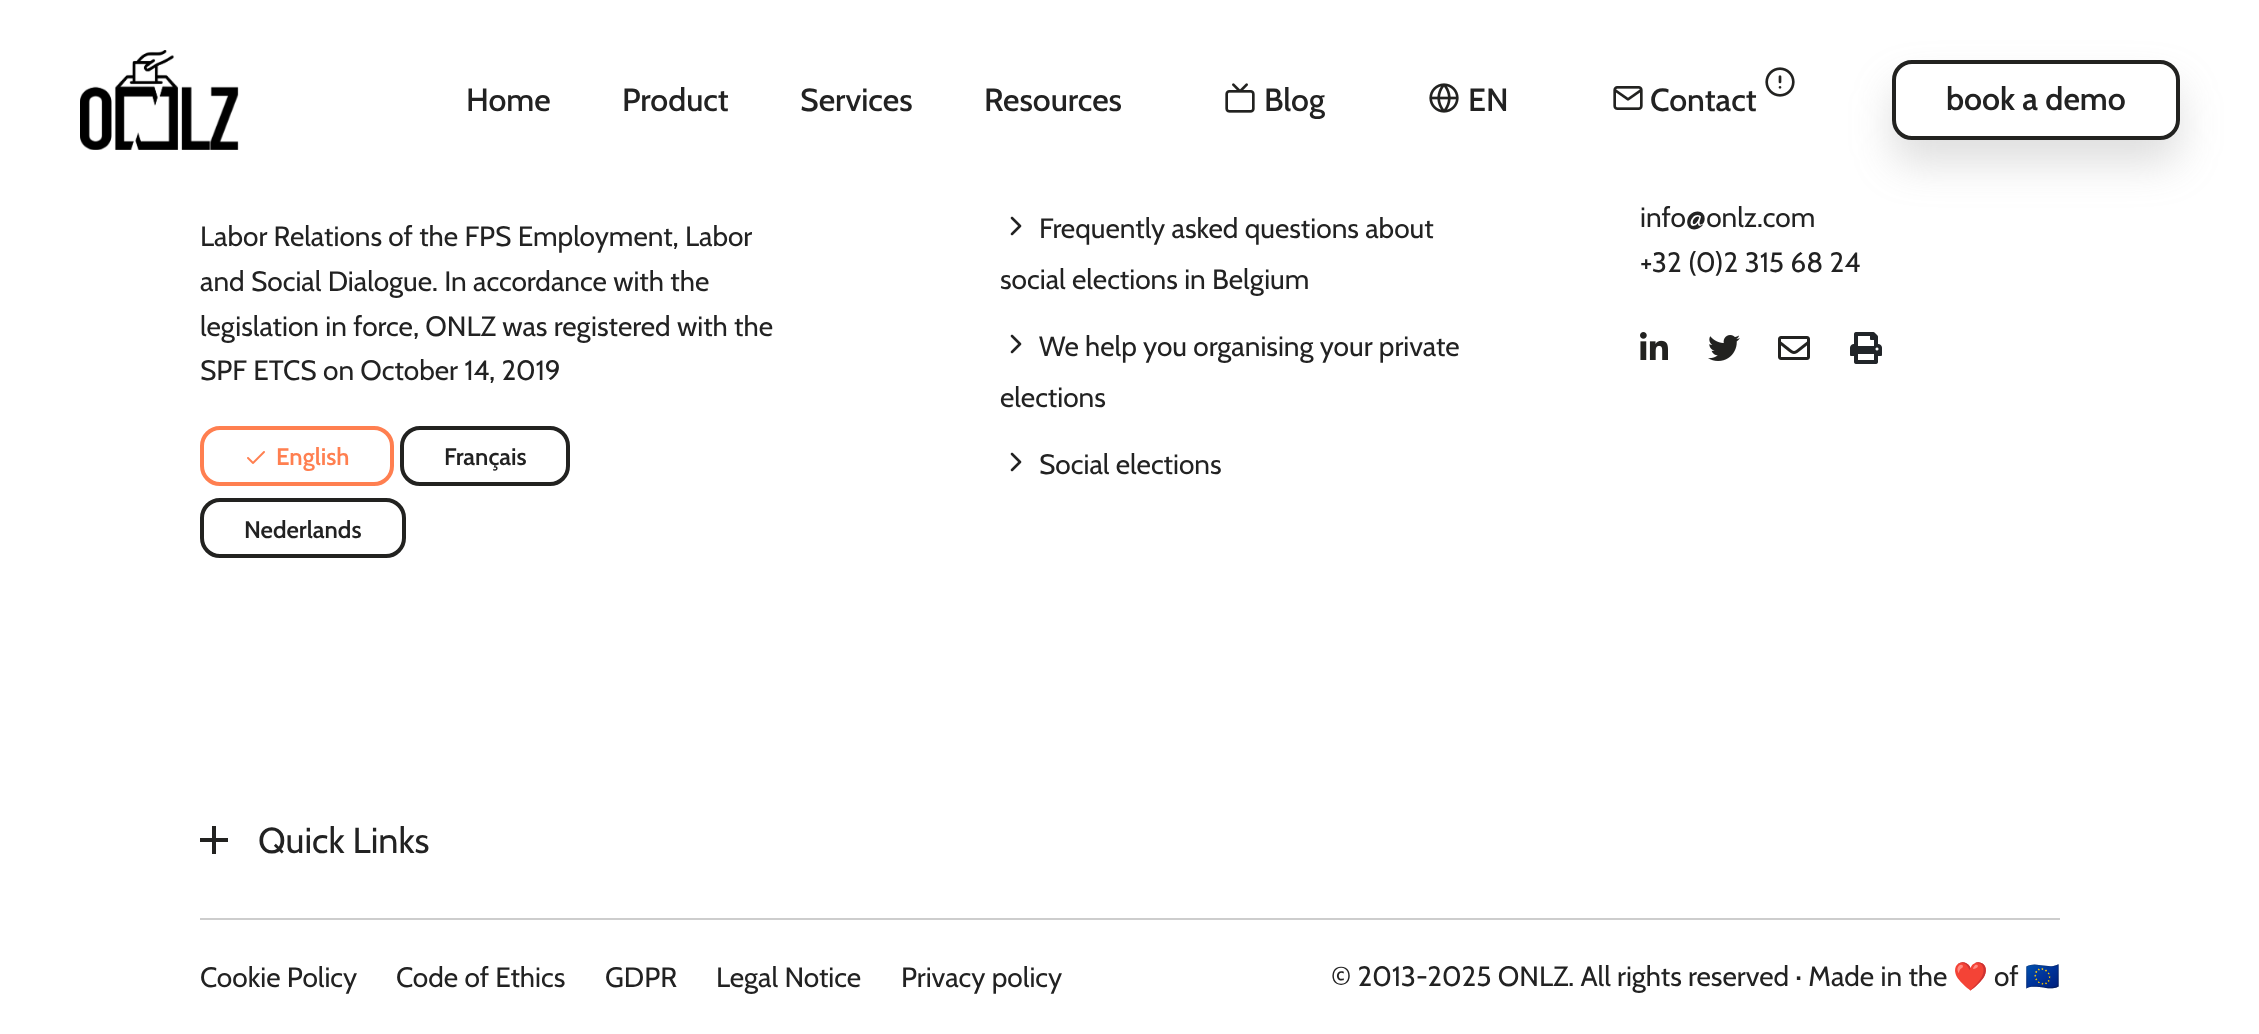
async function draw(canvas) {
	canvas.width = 2259;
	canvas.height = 1034;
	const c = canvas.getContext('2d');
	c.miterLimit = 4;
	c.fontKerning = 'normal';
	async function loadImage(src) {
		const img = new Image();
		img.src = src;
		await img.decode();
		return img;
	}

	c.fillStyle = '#fff';
	c.fillRect(0, 0, 2259, 1034);
	c.drawImage(await loadImage('img1.png'), 80, 50, 159, 100);
	c.font = '500 32px Cabin';
	c.fillStyle = '#222';
	for (const [text, x, y] of [
		['Home', 466, 111],
		['Product', 622, 111],
		['Services', 800, 111],
		['Resources', 984, 111],
	]) {
		c.fillText(text, x, y);
	}
	c.drawImage(await loadImage('img2.png'), 1225, 83, 30, 30);
	c.fillText('Blog', 1264, 111);
	c.drawImage(await loadImage('img3.png'), 1429, 83, 30, 30);
	c.fillText('EN', 1468, 111);
	c.drawImage(await loadImage('img4.png'), 1613, 86, 30, 24);
	c.fillText('Contact', 1650, 111);
	c.drawImage(await loadImage('img5.png'), 1765, 67, 30, 30);
	c.save();
	c.beginPath();
	c.moveTo(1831, 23);
	c.lineTo(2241, 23);
	c.lineTo(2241, 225);
	c.lineTo(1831, 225);
	c.closePath();
	c.moveTo(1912, 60);
	c.lineTo(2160, 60);
	c.bezierCurveTo(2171, 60, 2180, 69, 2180, 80);
	c.lineTo(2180, 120);
	c.bezierCurveTo(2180, 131, 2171, 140, 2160, 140);
	c.lineTo(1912, 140);
	c.bezierCurveTo(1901, 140, 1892, 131, 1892, 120);
	c.lineTo(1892, 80);
	c.bezierCurveTo(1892, 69, 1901, 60, 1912, 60);
	c.closePath();
	c.clip('evenodd');
	c.fillStyle = '#81818140';
	c.filter = 'blur(20px)';
	c.beginPath();
	c.roundRect(1892, 84, 288, 80, 20);
	c.fill();
	c.filter = 'none';
	c.restore();
	c.beginPath();
	c.roundRect(1894, 62, 284, 76, 18);
	c.strokeStyle = '#222220';
	c.lineWidth = 4;
	c.stroke();
	c.font = '600 32px Cabin';
	c.fillText('book a demo', 1946, 110);
	c.font = '28px Cabin';
	for (const [text, x, y] of [
		['Labor Relations of the FPS Employment, Labor', 200, 246],
		['and Social Dialogue. In accordance with the', 200, 291],
		['legislation in force, ONLZ was registered with the', 200, 336],
		['SPF ETCS on October 14, 2019', 200, 380],
	]) {
		c.fillText(text, x, y);
	}
	c.beginPath();
	c.roundRect(202, 428, 190, 56, 18);
	c.strokeStyle = '#ff7f50';
	c.stroke();
	c.drawImage(await loadImage('img6.png'), 247, 451, 18, 13);
	c.font = '600 24px Cabin';
	c.fillStyle = '#ff7f50';
	c.fillText('English', 276, 465);
	c.beginPath();
	c.roundRect(402, 428, 166, 56, 18);
	c.strokeStyle = '#222220';
	c.stroke();
	c.fillStyle = '#222';
	c.fillText('Français', 444, 465);
	c.beginPath();
	c.roundRect(202, 500, 202, 56, 18);
	c.stroke();
	c.fillText('Nederlands', 244, 538);
	c.drawImage(await loadImage('img7.png'), 1010, 216, 12, 20);
	c.font = '28px Cabin';
	c.fillText('Frequently asked questions about', 1039, 238);
	c.fillText('social elections in Belgium', 1000, 289);
	c.drawImage(await loadImage('img7.png'), 1010, 334, 12, 20);
	c.fillText('We help you organising your private', 1039, 356);
	c.fillText('elections', 1000, 407);
	c.drawImage(await loadImage('img7.png'), 1010, 452, 12, 20);
	for (const [text, x, y] of [
		['Social elections', 1039, 474],
		['info@onlz.com', 1640, 227],
		['+32 (0)2 315 68 24', 1640, 272],
	]) {
		c.fillText(text, x, y);
	}
	c.drawImage(await loadImage('img8.png'), 1640, 332, 28, 28);
	c.drawImage(await loadImage('img9.png'), 1708, 335, 32, 26);
	c.drawImage(await loadImage('img10.png'), 1778, 336, 32, 24);
	c.drawImage(await loadImage('img11.png'), 1850, 332, 32, 32);
	c.fillStyle = '#222220';
	c.fillRect(212, 826, 4, 28);
	c.fillRect(200, 838, 28, 4);
	c.font = '36px Cabin';
	c.fillStyle = '#222';
	c.fillText('Quick Links', 258, 853);
	c.fillStyle = '#cdcdcd';
	c.fillRect(200, 918, 1860, 2);
	c.font = '28px Cabin';
	c.fillStyle = '#222';
	for (const [text, x, y] of [
		['Cookie Policy', 200, 987],
		['Code of Ethics', 396, 987],
		['GDPR', 605, 987],
		['Legal Notice', 716, 987],
		['Privacy policy', 901, 987],
		['© 2013-2025 ONLZ. All rights reserved · Made in the', 1331, 986],
	]) {
		c.fillText(text, x, y);
	}
	c.font = '28px Noto Color Emoji';
	c.fillText('❤️', 1953, 986);
	c.font = '28px Cabin';
	c.fillText('of', 1994, 986);
	c.font = '28px Noto Color Emoji';
	c.fillText('🇪🇺', 2025, 986);
}

draw(document.querySelector('canvas'));
